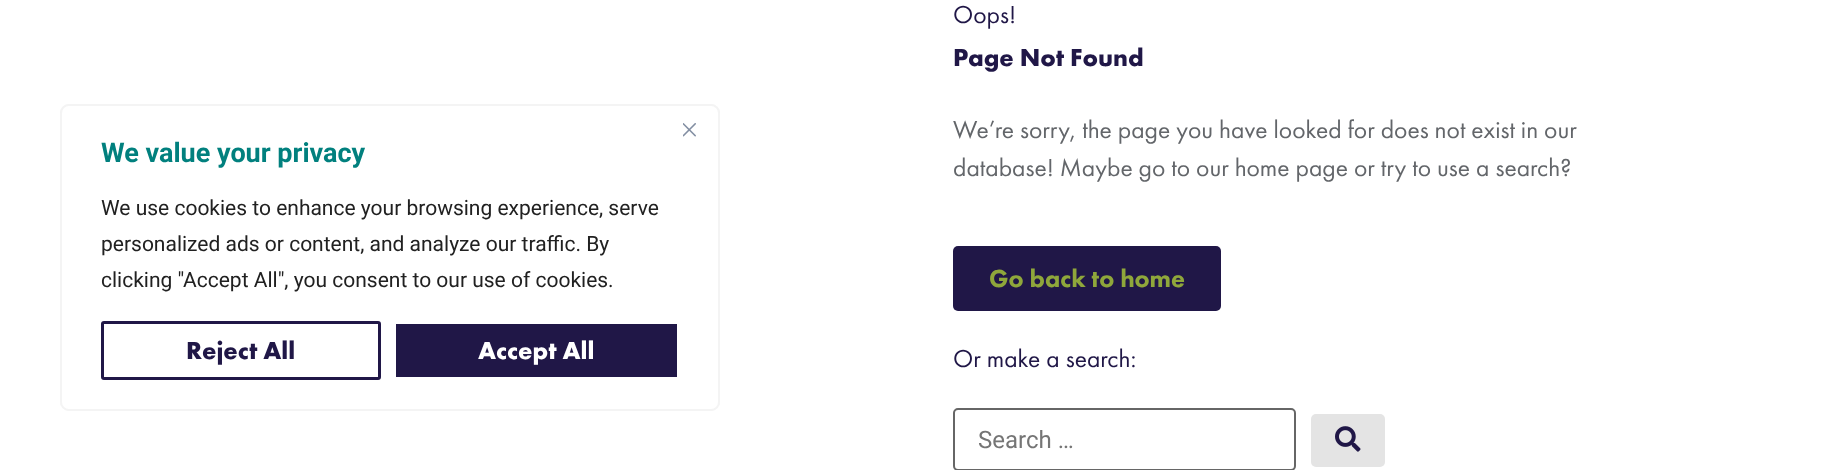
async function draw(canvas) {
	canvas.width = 1844;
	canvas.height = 470;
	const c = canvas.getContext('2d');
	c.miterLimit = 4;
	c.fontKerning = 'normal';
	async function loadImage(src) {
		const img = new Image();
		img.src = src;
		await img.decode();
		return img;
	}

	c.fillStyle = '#fff';
	c.fillRect(0, 0, 1844, 470);
	c.save();
	c.beginPath();
	c.roundRect(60, 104, 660, 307, 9);
	c.clip();
	c.fillStyle = '#acabab4d';
	c.filter = 'blur(7.5px)';
	c.beginPath();
	c.roundRect(60, 102, 660, 308, 9);
	c.fill();
	c.filter = 'none';
	c.restore();
	c.beginPath();
	c.roundRect(61, 105, 658, 305, 8);
	c.fill();
	c.strokeStyle = '#f4f4f4';
	c.lineWidth = 2;
	c.stroke();
	c.drawImage(await loadImage('img1.png'), 683, 123, 13, 14);
	c.font = 'bold 27px Roboto';
	c.fillStyle = '#01807e';
	c.fillText('We value your privacy', 101, 162);
	c.font = '21px Roboto';
	c.fillStyle = '#212121';
	for (const [text, x, y] of [
		['We use cookies to enhance your browsing experience, serve', 101, 215],
		['personalized ads or content, and analyze our traffic. By', 101, 251],
		['clicking "Accept All", you consent to our use of cookies.', 101, 287],
	]) {
		c.fillText(text, x, y);
	}
	c.beginPath();
	c.roundRect(102.5, 322.5, 277, 56, 1.5);
	c.strokeStyle = '#201747';
	c.lineWidth = 3;
	c.stroke();
	c.font = 'bold 25.5px Futura PT';
	c.fillStyle = '#201747';
	c.fillText('Reject All', 186, 359);
	c.beginPath();
	c.roundRect(394.5, 322.5, 284, 56, 1.5);
	c.fill();
	c.strokeStyle = '#fff';
	c.stroke();
	c.fillStyle = '#fff';
	c.fillText('Accept All', 478, 359);
	c.font = '25.5px Futura PT';
	c.fillStyle = '#201747';
	c.fillText('Oops!', 953, 23);
	c.font = 'bold 25.5px Futura PT';
	c.fillText('Page Not Found', 953, 66);
	c.font = '25.5px Futura PT';
	c.fillStyle = '#63666a';
	c.fillText('We’re sorry, the page you have looked for does not exist in our', 953, 138);
	c.fillText('database! Maybe go to our home page or try to use a search?', 953, 176);
	c.fillStyle = '#201747';
	c.beginPath();
	c.roundRect(953, 246, 268, 65, 5);
	c.fill();
	c.font = '900 25.5px Futura PT';
	c.fillStyle = '#8fa73b';
	c.fillText('Go back to home', 989, 287);
	c.font = '25.5px Futura PT';
	c.fillStyle = '#201747';
	c.fillText('Or make a search:', 953, 367);
	c.beginPath();
	c.roundRect(954, 409, 341, 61, 4);
	c.strokeStyle = '#666';
	c.lineWidth = 2;
	c.stroke();
	c.font = '24px Roboto';
	c.fillStyle = '#757575';
	c.fillText('Search …', 978, 448);
	c.fillStyle = '#e4e4e4';
	c.beginPath();
	c.roundRect(1311, 414, 74, 53, 5);
	c.fill();
	c.drawImage(await loadImage('img2.png'), 1335, 426, 26, 26);
}

draw(document.querySelector('canvas'));
